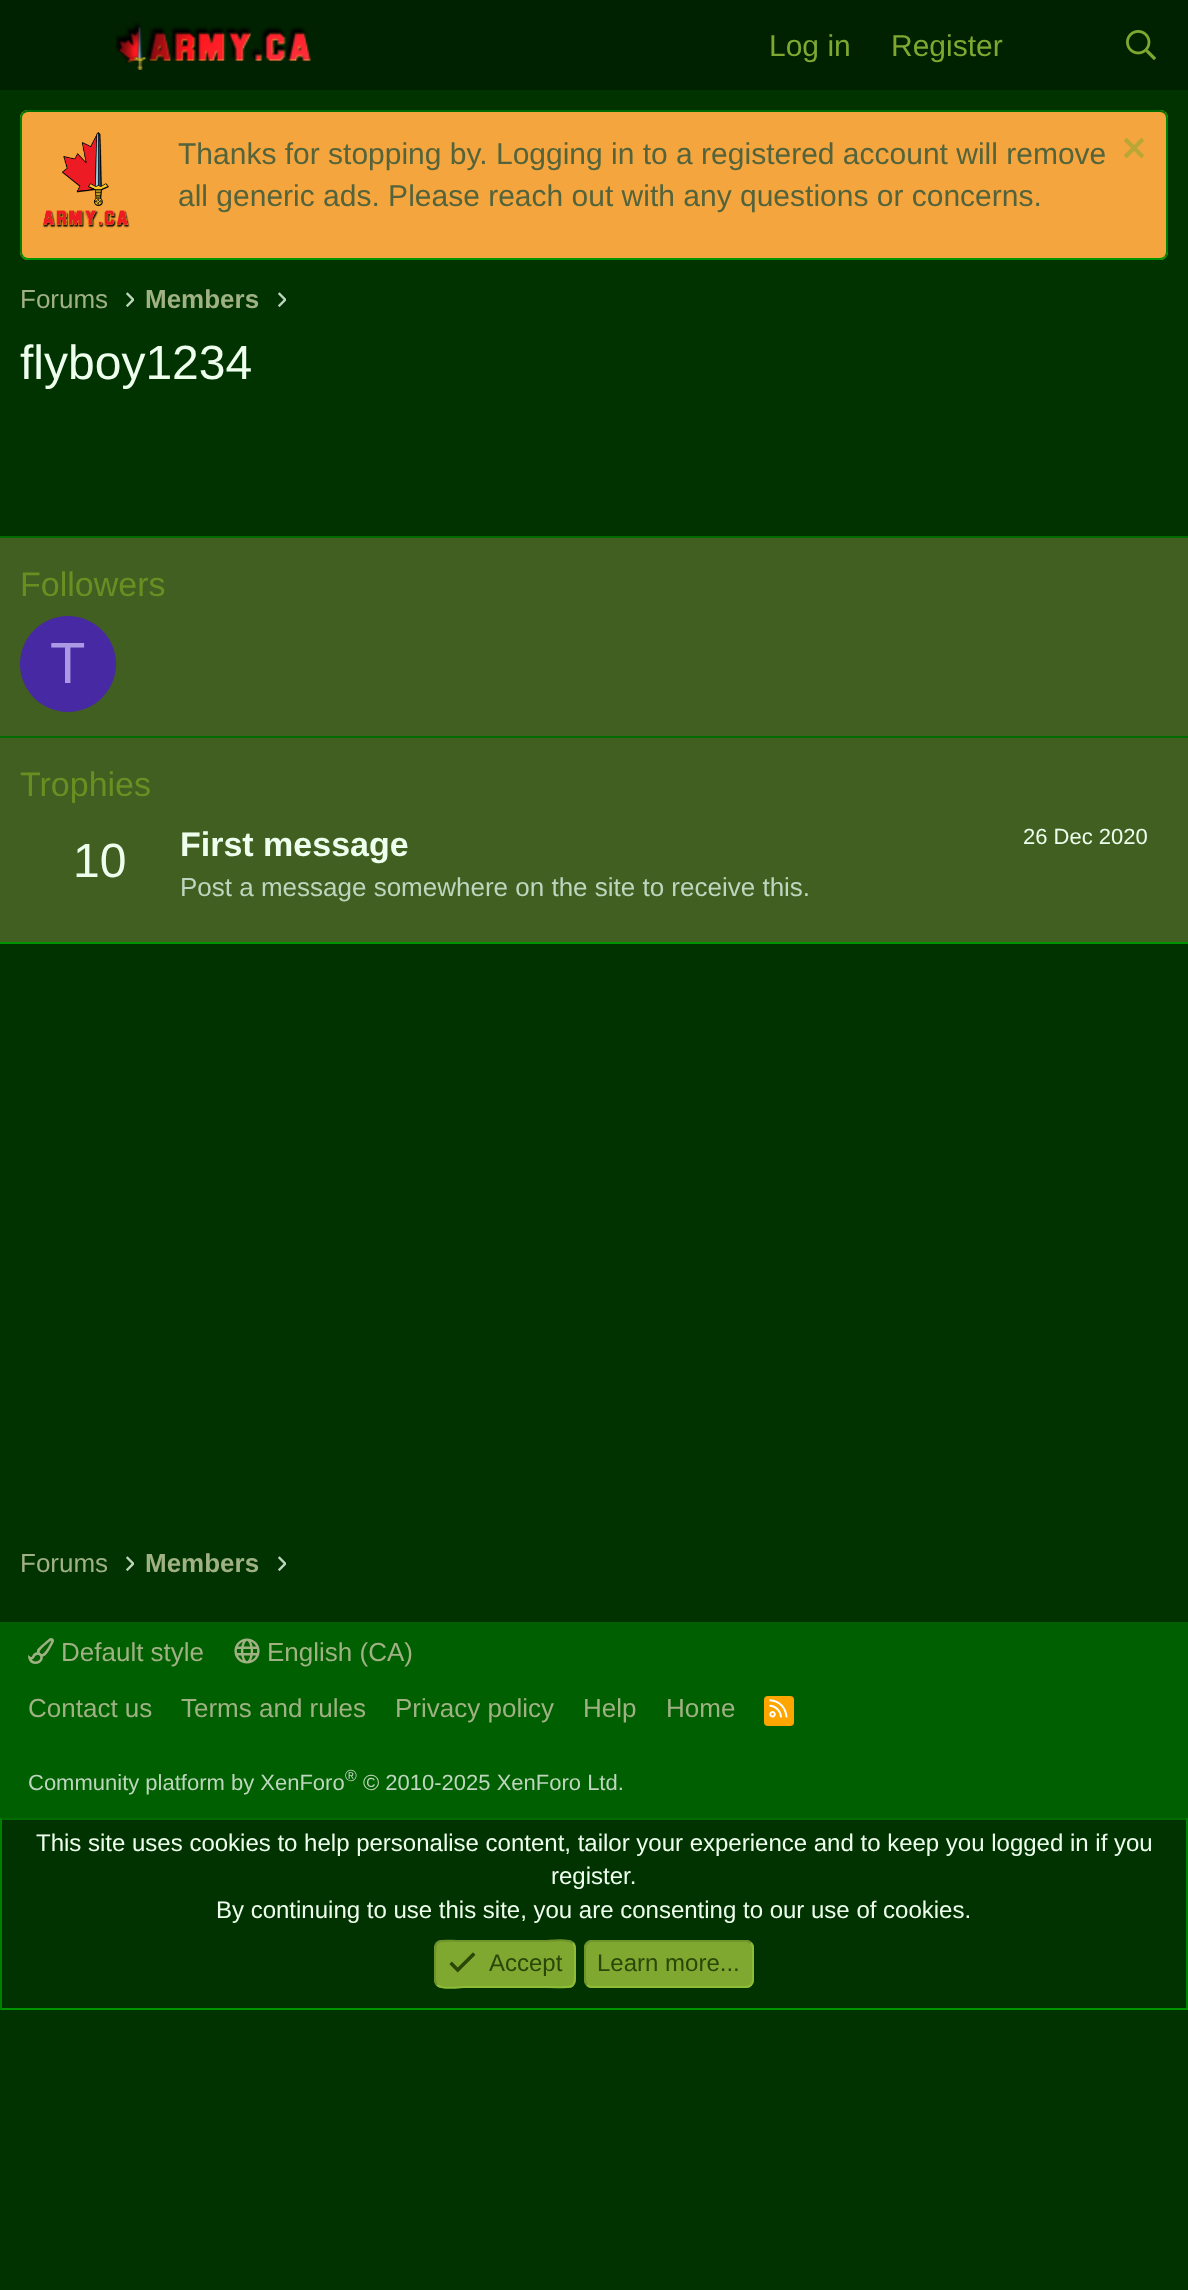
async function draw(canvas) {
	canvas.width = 1188;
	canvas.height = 2290;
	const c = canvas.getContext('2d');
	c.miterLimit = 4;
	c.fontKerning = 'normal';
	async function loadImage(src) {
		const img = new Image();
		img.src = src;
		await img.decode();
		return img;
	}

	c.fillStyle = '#030';
	c.fillRect(0, 0, 1188, 2290);
	c.fillStyle = '#020';
	c.fillRect(0, 0, 1188, 90);
	c.drawImage(await loadImage('img1.png'), 115, 22, 196, 48);
	c.font = '30px Liberation Sans';
	c.fillStyle = '#7ea830';
	c.fillText('Log in', 769, 56);
	c.fillText('Register', 891, 56);
	c.drawImage(await loadImage('img2.png'), 1126, 30, 30, 30);
	c.fillStyle = '#f5a53d';
	c.beginPath();
	c.roundRect(20, 110, 1148, 150, 8);
	c.fill();
	c.beginPath();
	c.moveTo(23, 113);
	c.bezierCurveTo(24.5, 111.5, 26, 111, 28, 111);
	c.lineTo(1160, 111);
	c.bezierCurveTo(1162, 111, 1163.5, 111.5, 1165, 113);
	c.strokeStyle = '#006b00';
	c.lineWidth = 2;
	c.stroke();
	c.beginPath();
	c.moveTo(1165, 113);
	c.bezierCurveTo(1166.5, 114.5, 1167, 116, 1167, 118);
	c.lineTo(1167, 252);
	c.bezierCurveTo(1167, 254, 1166.5, 255.5, 1165, 257);
	c.strokeStyle = '#008000';
	c.stroke();
	c.beginPath();
	c.moveTo(1165, 257);
	c.bezierCurveTo(1163.5, 258.5, 1162, 259, 1160, 259);
	c.lineTo(28, 259);
	c.bezierCurveTo(26, 259, 24.5, 258.5, 23, 257);
	c.strokeStyle = '#009400';
	c.stroke();
	c.beginPath();
	c.moveTo(23, 257);
	c.bezierCurveTo(21.5, 255.5, 21, 254, 21, 252);
	c.lineTo(21, 118);
	c.bezierCurveTo(21, 116, 21.5, 114.5, 23, 113);
	c.strokeStyle = '#008000';
	c.stroke();
	c.drawImage(await loadImage('img3.png'), 42, 132, 88, 96);
	c.fillStyle = '#53633b';
	c.fillText('Thanks for stopping by. Logging in to a registered account will remove', 178, 164);
	c.drawImage(await loadImage('img4.png'), 1124, 138, 20, 20);
	c.fillText('all generic ads. Please reach out with any questions or concerns.', 178, 206);
	c.font = '26px Liberation Sans';
	c.fillStyle = '#a0b184';
	c.fillText('Forums', 20, 308);
	c.drawImage(await loadImage('img5.png'), 126, 292, 8, 15);
	c.font = 'bold 26px Liberation Sans';
	c.fillText('Members', 145, 308);
	c.drawImage(await loadImage('img5.png'), 278, 292, 8, 15);
	c.font = '48px Liberation Sans';
	c.fillStyle = '#efe';
	c.fillText('flyboy1234', 20, 379);
	for (const [x, y, w, h, color] of [
		[0, 538, 1188, 404, '#415f21'],
		[0, 536, 1188, 2, '#006b00'],
		[0, 942, 1188, 2, '#009400'],
	]) {
		c.fillStyle = color;
		c.fillRect(x, y, w, h);
	}
	c.font = '34px Liberation Sans';
	c.fillStyle = '#6b8e23';
	c.fillText('Followers', 20, 596);
	c.fillStyle = '#4729a3';
	c.beginPath();
	c.arc(68, 664, 48, 0, 2 * Math.PI);
	c.fill();
	c.font = '58px Liberation Sans';
	c.fillStyle = '#ac99e6';
	c.fillText('T', 50, 683);
	c.fillStyle = '#006b00';
	c.fillRect(0, 736, 1188, 2);
	c.font = '34px Liberation Sans';
	c.fillStyle = '#6b8e23';
	c.fillText('Trophies', 20, 796);
	c.font = '48px Liberation Sans';
	c.fillStyle = '#efe';
	c.fillText('10', 73, 877);
	c.font = 'bold 34px Liberation Sans';
	c.fillText('First message', 180, 856);
	c.font = '22px Liberation Sans';
	c.fillText('26 Dec 2020', 1023, 844);
	c.font = '26px Liberation Sans';
	c.fillStyle = '#bed6be';
	c.fillText('Post a message somewhere on the site to receive this.', 180, 896);
	c.fillStyle = '#a0b184';
	c.fillText('Forums', 20, 1572);
	c.drawImage(await loadImage('img5.png'), 126, 1556, 8, 15);
	c.font = 'bold 26px Liberation Sans';
	c.fillText('Members', 145, 1572);
	c.drawImage(await loadImage('img5.png'), 278, 1556, 8, 15);
	c.fillStyle = '#005f00';
	c.fillRect(0, 1622, 1188, 196);
	c.drawImage(await loadImage('img6.png'), 28, 1638, 26, 26);
	c.font = '26px Liberation Sans';
	c.fillStyle = '#a0b184';
	c.fillText('Default style', 61, 1661);
	c.drawImage(await loadImage('img7.png'), 234, 1638, 26, 26);
	for (const [text, x, y] of [
		['English (CA)', 267, 1661],
		['Contact us', 28, 1717],
		['Terms and rules', 181, 1717],
		['Privacy policy', 395, 1717],
		['Help', 583, 1717],
		['Home', 666, 1717],
	]) {
		c.fillText(text, x, y);
	}
	c.fillStyle = '#ffa500';
	c.beginPath();
	c.roundRect(764, 1696, 30, 30, 4);
	c.fill();
	c.drawImage(await loadImage('img8.png'), 769, 1699, 19, 19);
	c.font = '22px Liberation Sans';
	c.fillStyle = '#bed6be';
	c.fillText('Community platform by XenForo', 28, 1790);
	c.font = '16px Liberation Sans';
	c.fillText('®', 345, 1781);
	c.font = '22px Liberation Sans';
	c.fillText('© 2010-2025 XenForo Ltd.', 363, 1790);
	for (const [x, y, w, h, color] of [
		[0, 1818, 1188, 2, '#006b00'],
		[1186, 1818, 2, 192, '#008000'],
		[0, 2008, 1188, 2, '#009400'],
		[0, 1818, 2, 192, '#008000'],
	]) {
		c.fillStyle = color;
		c.fillRect(x, y, w, h);
	}
	c.font = '24px Liberation Sans';
	c.fillStyle = '#efe';
	for (const [text, x, y] of [
		['This site uses cookies to help personalise content, tailor your experience and to keep you logged in if you', 36, 1851],
		['register.', 551, 1884],
		['By continuing to use this site, you are consenting to our use of cookies.', 216, 1918],
	]) {
		c.fillText(text, x, y);
	}
	c.fillStyle = '#7ea830';
	c.beginPath();
	c.roundRect(434, 1940, 142, 48, 8);
	c.fill();
	c.beginPath();
	c.moveTo(573, 1943);
	c.bezierCurveTo(575.5, 1946, 575, 1950, 575, 1953.5);
	c.lineTo(575, 1964);
	c.bezierCurveTo(575, 1991.5, 577, 1987, 547, 1987);
	c.lineTo(463, 1987);
	c.bezierCurveTo(461, 1987, 442, 1990, 437, 1985);
	c.strokeStyle = '#8dbc36';
	c.stroke();
	c.beginPath();
	c.moveTo(437, 1985);
	c.bezierCurveTo(434.5, 1982, 435, 1978, 435, 1974.5);
	c.lineTo(435, 1964);
	c.bezierCurveTo(435, 1936.5, 433, 1941, 463, 1941);
	c.lineTo(547, 1941);
	c.bezierCurveTo(549, 1941, 568, 1938, 573, 1943);
	c.strokeStyle = '#6f942a';
	c.stroke();
	c.drawImage(await loadImage('img9.png'), 449, 1952, 27, 21);
	c.fillStyle = '#2a4708';
	c.fillText('Accept', 489, 1971);
	c.fillStyle = '#7ea830';
	c.beginPath();
	c.roundRect(584, 1940, 170, 48, 8);
	c.fill();
	c.beginPath();
	c.moveTo(751, 1943);
	c.bezierCurveTo(752.5, 1944.5, 753, 1946, 753, 1948);
	c.lineTo(753, 1980);
	c.bezierCurveTo(753, 1982, 752.5, 1983.5, 751, 1985);
	c.bezierCurveTo(749.5, 1986.5, 748, 1987, 746, 1987);
	c.lineTo(592, 1987);
	c.bezierCurveTo(590, 1987, 588.5, 1986.5, 587, 1985);
	c.strokeStyle = '#8dbc36';
	c.stroke();
	c.beginPath();
	c.moveTo(587, 1985);
	c.bezierCurveTo(585.5, 1983.5, 585, 1982, 585, 1980);
	c.lineTo(585, 1948);
	c.bezierCurveTo(585, 1946, 585.5, 1944.5, 587, 1943);
	c.bezierCurveTo(588.5, 1941.5, 590, 1941, 592, 1941);
	c.lineTo(746, 1941);
	c.bezierCurveTo(748, 1941, 749.5, 1941.5, 751, 1943);
	c.strokeStyle = '#6f942a';
	c.stroke();
	c.fillStyle = '#2a4708';
	c.fillText('Learn more...', 597, 1971);
}

draw(document.querySelector('canvas'));
